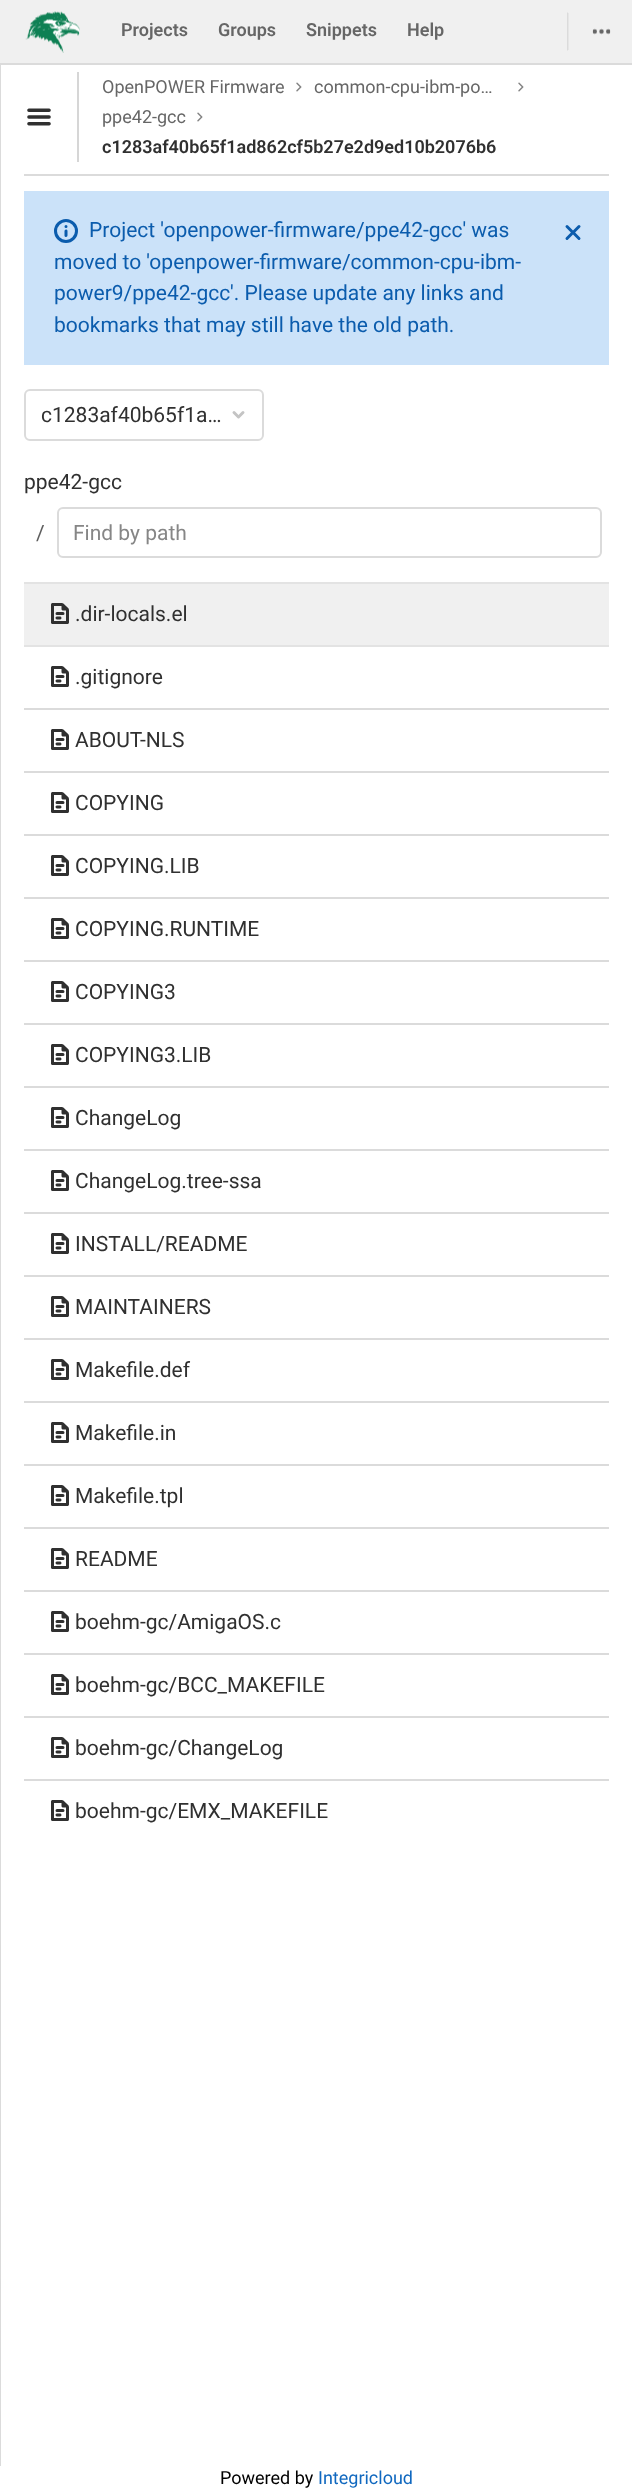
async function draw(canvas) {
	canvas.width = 632;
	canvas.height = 2490;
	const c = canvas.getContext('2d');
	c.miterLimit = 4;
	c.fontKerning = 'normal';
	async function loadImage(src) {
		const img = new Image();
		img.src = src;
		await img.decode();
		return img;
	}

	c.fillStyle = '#fff';
	c.fillRect(0, 0, 632, 2490);
	for (const [x, y, w, h, color] of [
		[0, 60, 1, 2406, '#dbdbdb'],
		[0, 63, 632, 2, '#dbdbdb'],
		[0, 0, 632, 63, '#f0f0f0'],
	]) {
		c.fillStyle = color;
		c.fillRect(x, y, w, h);
	}
	c.drawImage(await loadImage('img1.png'), 25, 11, 55, 42);
	c.font = '600 18px Roboto';
	c.fillStyle = '#666';
	for (const [text, x, y] of [
		['Projects', 121, 36],
		['Groups', 218, 36],
		['Snippets', 306, 36],
		['Help', 407, 36],
	]) {
		c.fillText(text, x, y);
	}
	c.fillStyle = '#dbdbdb';
	c.beginPath();
	c.moveTo(567, 51);
	c.lineTo(567, 12);
	c.lineTo(568.5, 13.5);
	c.lineTo(568.5, 49.5);
	c.closePath();
	c.fill();
	c.drawImage(await loadImage('img2.png'), 592, 28, 19, 7);
	c.fillRect(24, 174, 585, 2);
	c.drawImage(await loadImage('img3.png'), 27, 108, 24, 18);
	c.fillStyle = '#d6d6d6';
	c.fillRect(77, 72, 2, 90);
	c.font = '18px Roboto';
	c.fillStyle = '#666';
	c.fillText('OpenPOWER Firmware', 102, 93);
	c.drawImage(await loadImage('img4.png'), 296, 82, 6, 10);
	c.fillText('common-cpu-ibm-po…', 314, 93);
	c.drawImage(await loadImage('img4.png'), 518, 82, 6, 10);
	c.fillText('ppe42-gcc', 102, 123);
	c.drawImage(await loadImage('img4.png'), 197, 112, 6, 10);
	c.font = '600 18px Roboto';
	c.fillStyle = '#303030';
	c.fillText('c1283af40b65f1ad862cf5b27e2d9ed10b2076b6', 102, 153);
	c.fillStyle = '#cbe2f9';
	c.fillRect(24, 191, 585, 174);
	c.drawImage(await loadImage('img5.png'), 54, 219, 24, 24);
	c.font = '21px Roboto';
	c.fillStyle = '#0b5cad';
	c.fillText('Project \'openpower-firmware/ppe42-gcc\' was', 89, 237);
	c.drawImage(await loadImage('img6.png'), 565, 225, 16, 15);
	for (const [text, x, y] of [
		['moved to \'openpower-firmware/common-cpu-ibm-', 54, 269],
		['power9/ppe42-gcc\'. Please update any links and', 54, 300],
		['bookmarks that may still have the old path.', 54, 332],
	]) {
		c.fillText(text, x, y);
	}
	c.beginPath();
	c.roundRect(25, 390, 238, 50, 5);
	c.strokeStyle = '#dbdbdb';
	c.lineWidth = 2;
	c.stroke();
	c.fillStyle = '#303030';
	c.fillText('c1283af40b65f1a…', 41, 422);
	c.drawImage(await loadImage('img7.png'), 232, 411, 13, 8);
	c.fillText('ppe42-gcc', 24, 489);
	c.fillStyle = '#5e5e5e';
	c.fillText('/', 36, 540);
	c.beginPath();
	c.roundRect(58, 508, 543, 49, 5);
	c.stroke();
	c.fillStyle = '#868686';
	c.fillText('Find by path', 73, 540);
	for (const [x, y, w, h, color] of [
		[24, 584, 585, 61, '#f0f0f0'],
		[24, 582, 585, 2, '#e3e3e3'],
		[24, 645, 585, 2, '#e3e3e3'],
	]) {
		c.fillStyle = color;
		c.fillRect(x, y, w, h);
	}
	c.drawImage(await loadImage('img8.png'), 51, 603, 18, 21);
	c.fillStyle = '#303030';
	c.fillText('.dir-locals.el', 75, 621);
	c.drawImage(await loadImage('img9.png'), 51, 666, 18, 21);
	c.fillText('.gitignore', 75, 684);
	c.fillStyle = '#dbdbdb';
	c.fillRect(24, 708, 585, 2);
	c.drawImage(await loadImage('img9.png'), 51, 729, 18, 21);
	c.fillStyle = '#303030';
	c.fillText('ABOUT-NLS', 75, 747);
	c.fillStyle = '#dbdbdb';
	c.fillRect(24, 771, 585, 2);
	c.drawImage(await loadImage('img9.png'), 51, 792, 18, 21);
	c.fillStyle = '#303030';
	c.fillText('COPYING', 75, 810);
	c.fillStyle = '#dbdbdb';
	c.fillRect(24, 834, 585, 2);
	c.drawImage(await loadImage('img9.png'), 51, 855, 18, 21);
	c.fillStyle = '#303030';
	c.fillText('COPYING.LIB', 75, 873);
	c.fillStyle = '#dbdbdb';
	c.fillRect(24, 897, 585, 2);
	c.drawImage(await loadImage('img9.png'), 51, 918, 18, 21);
	c.fillStyle = '#303030';
	c.fillText('COPYING.RUNTIME', 75, 936);
	c.fillStyle = '#dbdbdb';
	c.fillRect(24, 960, 585, 2);
	c.drawImage(await loadImage('img9.png'), 51, 981, 18, 21);
	c.fillStyle = '#303030';
	c.fillText('COPYING3', 75, 999);
	c.fillStyle = '#dbdbdb';
	c.fillRect(24, 1023, 585, 2);
	c.drawImage(await loadImage('img9.png'), 51, 1044, 18, 21);
	c.fillStyle = '#303030';
	c.fillText('COPYING3.LIB', 75, 1062);
	c.fillStyle = '#dbdbdb';
	c.fillRect(24, 1086, 585, 2);
	c.drawImage(await loadImage('img9.png'), 51, 1107, 18, 21);
	c.fillStyle = '#303030';
	c.fillText('ChangeLog', 75, 1125);
	c.fillStyle = '#dbdbdb';
	c.fillRect(24, 1149, 585, 2);
	c.drawImage(await loadImage('img9.png'), 51, 1170, 18, 21);
	c.fillStyle = '#303030';
	c.fillText('ChangeLog.tree-ssa', 75, 1188);
	c.fillStyle = '#dbdbdb';
	c.fillRect(24, 1212, 585, 2);
	c.drawImage(await loadImage('img9.png'), 51, 1233, 18, 21);
	c.fillStyle = '#303030';
	c.fillText('INSTALL/README', 75, 1251);
	c.fillStyle = '#dbdbdb';
	c.fillRect(24, 1275, 585, 2);
	c.drawImage(await loadImage('img9.png'), 51, 1296, 18, 21);
	c.fillStyle = '#303030';
	c.fillText('MAINTAINERS', 75, 1314);
	c.fillStyle = '#dbdbdb';
	c.fillRect(24, 1338, 585, 2);
	c.drawImage(await loadImage('img9.png'), 51, 1359, 18, 21);
	c.fillStyle = '#303030';
	c.fillText('Makefile.def', 75, 1377);
	c.fillStyle = '#dbdbdb';
	c.fillRect(24, 1401, 585, 2);
	c.drawImage(await loadImage('img9.png'), 51, 1422, 18, 21);
	c.fillStyle = '#303030';
	c.fillText('Makefile.in', 75, 1440);
	c.fillStyle = '#dbdbdb';
	c.fillRect(24, 1464, 585, 2);
	c.drawImage(await loadImage('img9.png'), 51, 1485, 18, 21);
	c.fillStyle = '#303030';
	c.fillText('Makefile.tpl', 75, 1503);
	c.fillStyle = '#dbdbdb';
	c.fillRect(24, 1527, 585, 2);
	c.drawImage(await loadImage('img9.png'), 51, 1548, 18, 21);
	c.fillStyle = '#303030';
	c.fillText('README', 75, 1566);
	c.fillStyle = '#dbdbdb';
	c.fillRect(24, 1590, 585, 2);
	c.drawImage(await loadImage('img9.png'), 51, 1611, 18, 21);
	c.fillStyle = '#303030';
	c.fillText('boehm-gc/AmigaOS.c', 75, 1629);
	c.fillStyle = '#dbdbdb';
	c.fillRect(24, 1653, 585, 2);
	c.drawImage(await loadImage('img9.png'), 51, 1674, 18, 21);
	c.fillStyle = '#303030';
	c.fillText('boehm-gc/BCC_MAKEFILE', 75, 1692);
	c.fillStyle = '#dbdbdb';
	c.fillRect(24, 1716, 585, 2);
	c.drawImage(await loadImage('img9.png'), 51, 1737, 18, 21);
	c.fillStyle = '#303030';
	c.fillText('boehm-gc/ChangeLog', 75, 1755);
	c.fillStyle = '#dbdbdb';
	c.fillRect(24, 1779, 585, 2);
	c.drawImage(await loadImage('img9.png'), 51, 1800, 18, 21);
	c.fillStyle = '#303030';
	c.fillText('boehm-gc/EMX_MAKEFILE', 75, 1818);
	c.font = '18px Roboto';
	c.fillStyle = '#000';
	c.fillText('Powered by', 220, 2484);
	c.fillStyle = '#1068bf';
	c.fillText('Integricloud', 318, 2484);
}

draw(document.querySelector('canvas'));
